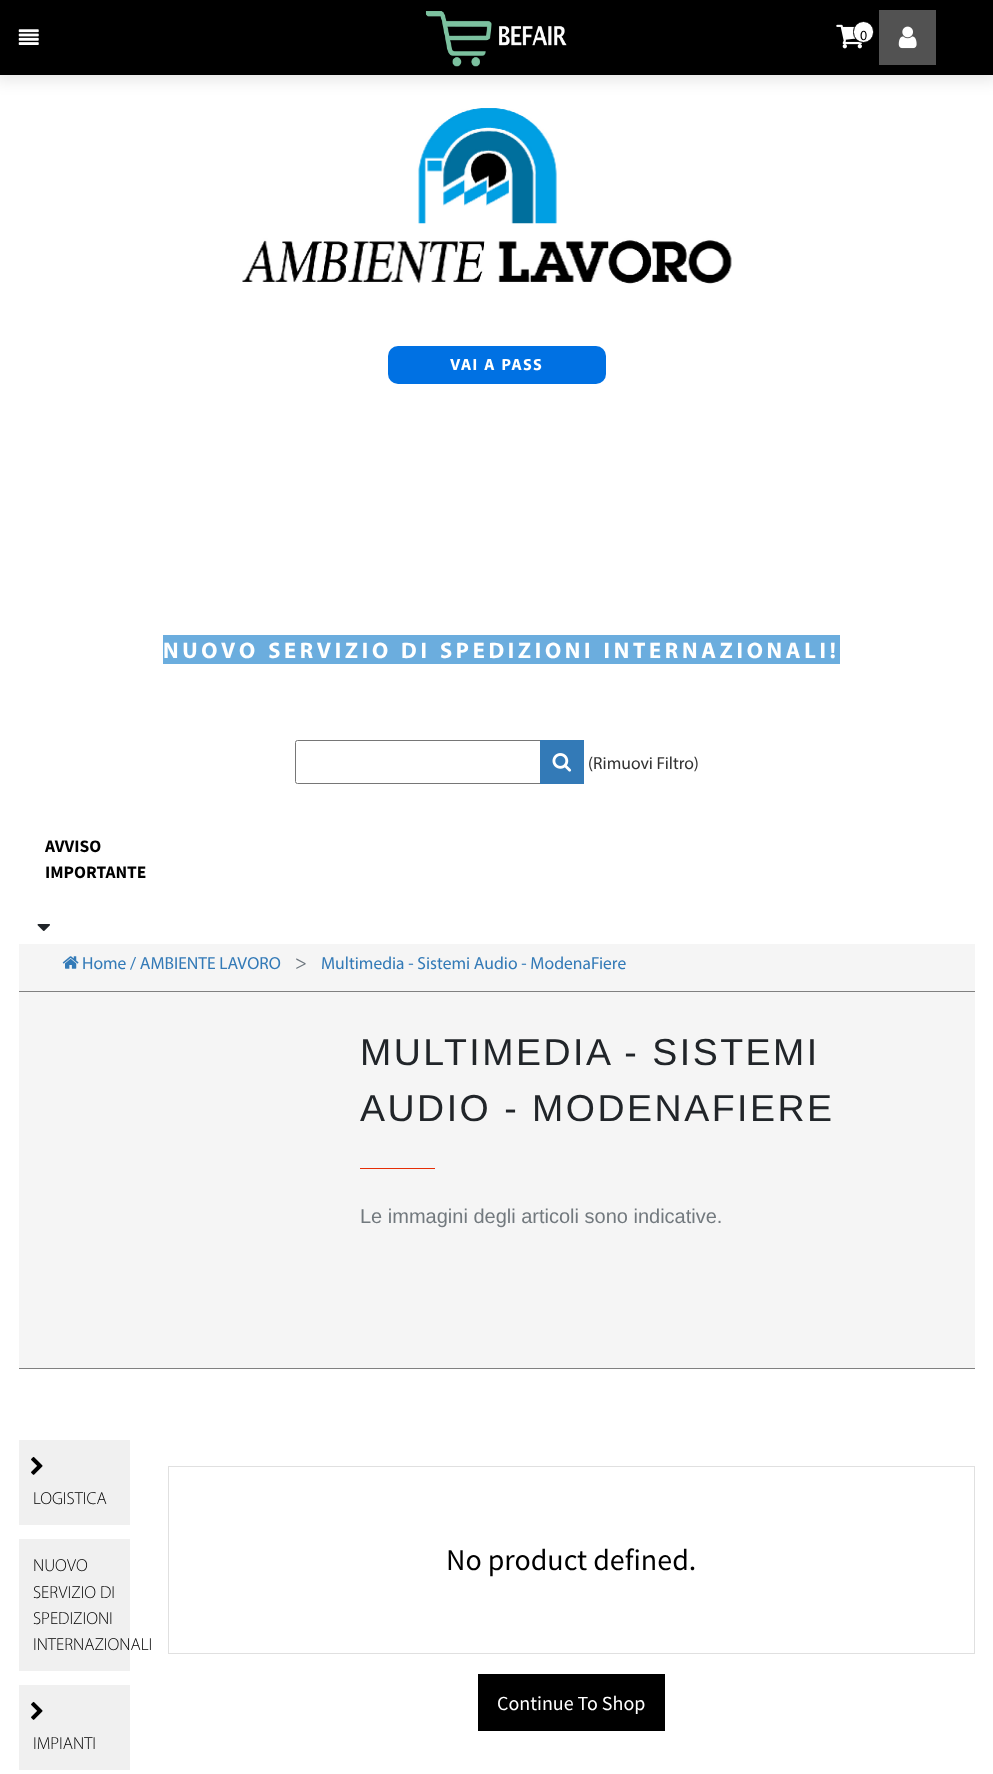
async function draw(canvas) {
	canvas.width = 993;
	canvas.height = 1774;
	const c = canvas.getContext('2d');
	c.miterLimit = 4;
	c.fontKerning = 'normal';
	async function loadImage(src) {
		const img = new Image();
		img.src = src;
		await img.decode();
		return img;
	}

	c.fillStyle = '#fff';
	c.fillRect(0, 0, 993, 1774);
	c.fillStyle = '#00000017';
	c.filter = 'blur(7.5px)';
	c.beginPath();
	c.rect(-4, -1, 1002, 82);
	c.fill();
	c.filter = 'none';
	c.fillStyle = '#000';
	c.fillRect(0, 0, 993, 75);
	c.drawImage(await loadImage('img1.png'), 18, 29, 21, 16);
	c.drawImage(await loadImage('img2.png'), 425, 11, 142, 56);
	c.drawImage(await loadImage('img3.png'), 836, 24, 26, 25);
	c.fillStyle = '#fff';
	c.beginPath();
	c.roundRect(853.5, 21.5, 20, 21, 10);
	c.fill();
	c.strokeStyle = '#000';
	c.stroke();
	c.font = '14px Myriad';
	c.fillStyle = '#000';
	c.fillText('0', 860, 40);
	c.fillStyle = '#525252';
	c.fillRect(879, 10, 57, 55);
	c.drawImage(await loadImage('img4.png'), 898, 26, 19, 23);
	c.drawImage(await loadImage('img5.png'), 242, 108, 490, 176);
	c.fillStyle = '#0071e3';
	c.beginPath();
	c.roundRect(388, 346, 218, 38, 10);
	c.fill();
	c.letterSpacing = '1.25px';
	c.wordSpacing = '1px';
	c.font = 'bold 16.25px Myriad';
	c.fillStyle = '#fff';
	c.fillText('VAI A PASS', 450, 370);
	c.fillStyle = '#6badde';
	c.fillRect(163, 635, 677, 29);
	c.letterSpacing = '3.75px';
	c.font = 'bold 22.5px Myriad';
	c.fillStyle = '#fff';
	c.fillText('NUOVO SERVIZIO DI SPEDIZIONI INTERNAZIONALI!', 163, 658);
	c.beginPath();
	c.roundRect(295.5, 740.5, 249, 43, 2);
	c.strokeStyle = '#767676';
	c.stroke();
	c.fillStyle = '#337ab7';
	c.fillRect(540, 740, 44, 44);
	c.drawImage(await loadImage('img6.png'), 552, 753, 20, 19);
	c.letterSpacing = '0px';
	c.wordSpacing = '0px';
	c.font = '17.5px Myriad';
	c.fillStyle = '#333';
	c.fillText('(Rimuovi Filtro)', 588, 769);
	c.font = 'bold 17.5px Source Sans Pro';
	c.fillStyle = '#000';
	c.fillText('AVVISO', 45, 852);
	c.fillText('IMPORTANTE', 45, 878);
	c.drawImage(await loadImage('img7.png'), 37, 924, 13, 7);
	c.fillStyle = '#f5f5f5';
	c.fillRect(19, 944, 956, 47);
	c.drawImage(await loadImage('img8.png'), 62, 956, 17, 13);
	c.font = '17.5px Myriad';
	c.fillStyle = '#337ab7';
	c.fillText('Home / AMBIENTE LAVORO', 82, 969);
	c.font = '20px Myriad';
	c.fillStyle = '#6c757d';
	c.fillText('>', 295, 969);
	c.font = '17.5px Myriad';
	c.fillStyle = '#337ab7';
	c.fillText('Multimedia - Sistemi Audio - ModenaFiere', 321, 969);
	for (const [x, y, w, h, color] of [
		[19, 992, 956, 376, '#f5f5f5'],
		[19, 991, 956, 1, '#808080'],
		[19, 1368, 956, 1, '#808080'],
	]) {
		c.fillStyle = color;
		c.fillRect(x, y, w, h);
	}
	c.letterSpacing = '2.5px';
	c.font = '37.5px Liberation Sans';
	c.fillStyle = '#212529';
	c.fillText('MULTIMEDIA - SISTEMI', 360, 1065);
	c.fillText('AUDIO - MODENAFIERE', 360, 1121);
	c.fillStyle = '#e52e06';
	c.fillRect(360, 1168, 75, 1);
	c.letterSpacing = '0px';
	c.font = '20px Liberation Sans';
	c.fillStyle = '#72797e';
	c.fillText('Le immagini degli articoli sono indicative.', 360, 1223);
	c.fillStyle = '#f0f0f0';
	c.fillRect(19, 1440, 111, 85);
	c.drawImage(await loadImage('img9.png'), 31, 1456, 12, 19);
	c.font = '300 17.5px Myriad';
	c.fillStyle = '#000';
	c.fillText('LOGISTICA', 33, 1504);
	c.fillStyle = '#f0f0f0';
	c.fillRect(19, 1539, 111, 132);
	c.fillStyle = '#000';
	for (const [text, x, y] of [
		['NUOVO', 33, 1571],
		['SERVIZIO DI', 33, 1598],
		['SPEDIZIONI', 33, 1624],
		['INTERNAZIONALI', 33, 1650],
	]) {
		c.fillText(text, x, y);
	}
	c.fillStyle = '#f0f0f0';
	c.fillRect(19, 1685, 111, 85);
	c.drawImage(await loadImage('img9.png'), 31, 1701, 12, 19);
	c.fillStyle = '#000';
	c.fillText('IMPIANTI', 33, 1749);
	c.strokeStyle = '#e0e0e0';
	c.strokeRect(168.5, 1466.5, 806, 187);
	c.font = '30px Source Sans Pro';
	c.fillText('No product defined.', 446, 1570);
	c.fillRect(478, 1674, 187, 57);
	c.font = '20px Source Sans Pro';
	c.fillStyle = '#fff';
	c.fillText('Continue To Shop', 497, 1710);
}

draw(document.querySelector('canvas'));
